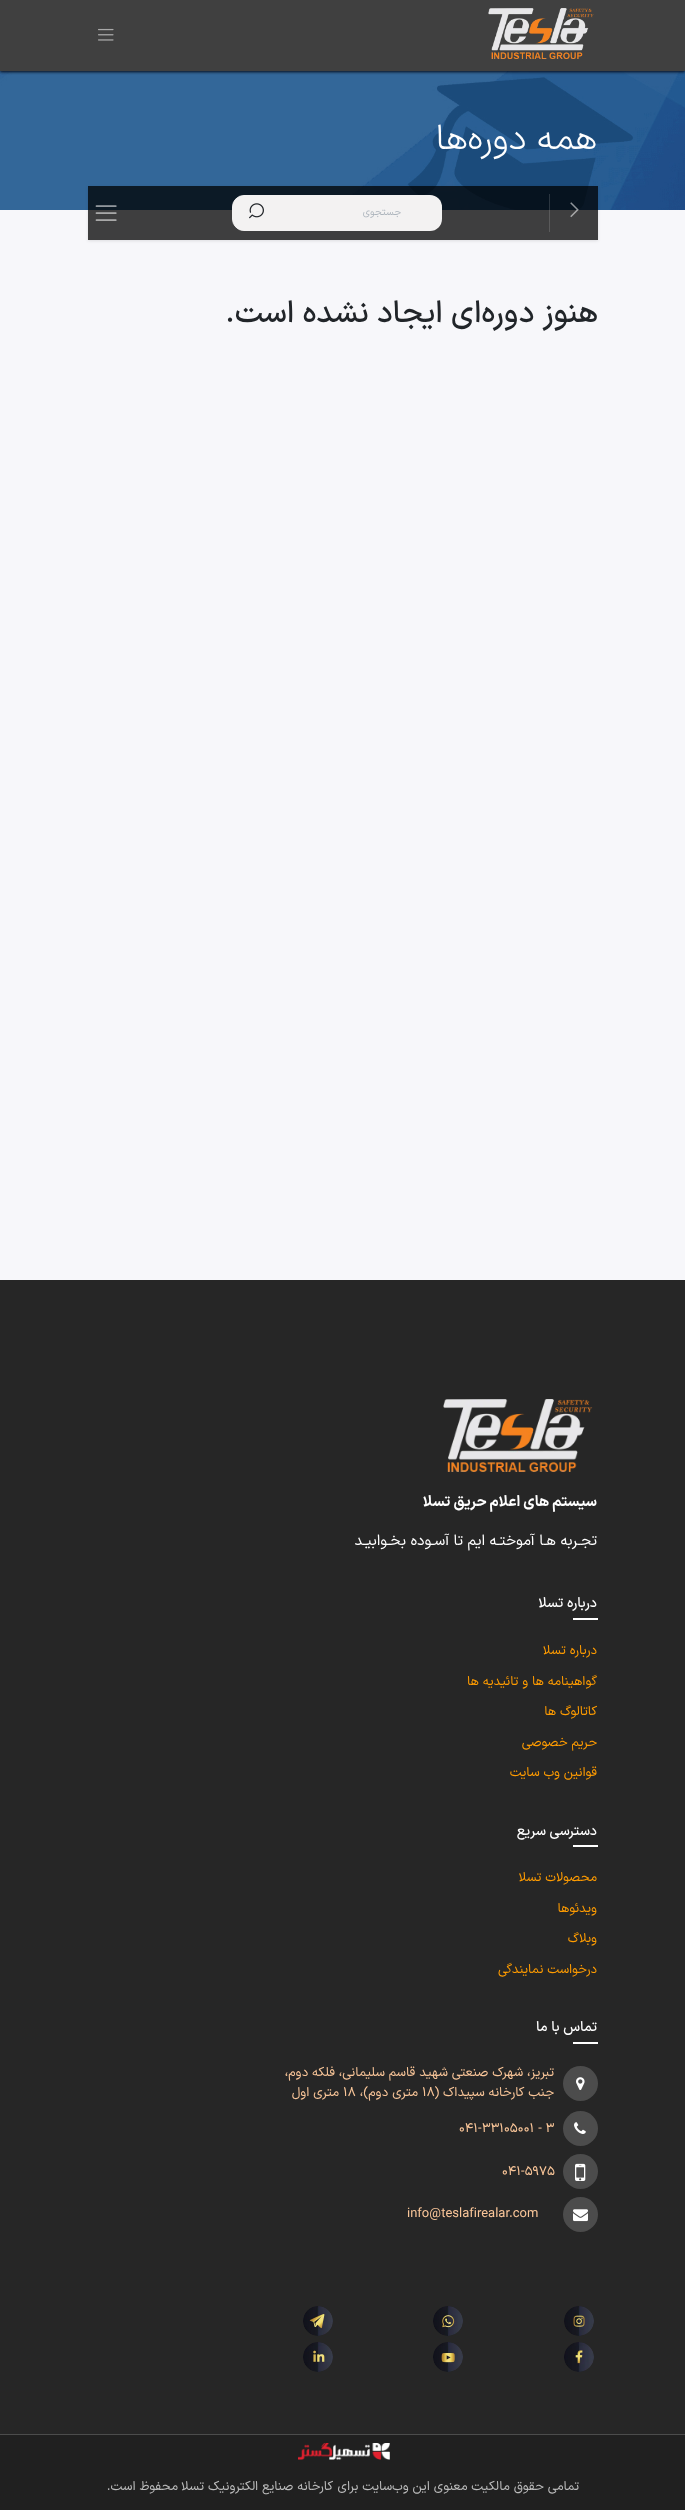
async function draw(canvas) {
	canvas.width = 685;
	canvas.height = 2510;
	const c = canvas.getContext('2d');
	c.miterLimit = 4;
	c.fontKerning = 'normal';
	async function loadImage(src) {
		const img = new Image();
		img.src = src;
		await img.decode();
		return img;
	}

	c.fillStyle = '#f7f7fa';
	c.fillRect(0, 0, 685, 2510);
	c.drawImage(await loadImage('img3.png'), 0, 71, 685, 139);
	c.fillStyle = '#00000ae8';
	c.filter = 'blur(1.5px)';
	c.beginPath();
	c.rect(0, 1, 685, 71);
	c.fill();
	c.filter = 'none';
	c.fillStyle = '#404040';
	c.fillRect(0, 0, 685, 71);
	c.drawImage(await loadImage('img1.png'), 488, 8, 106, 51);
	c.drawImage(await loadImage('img2.png'), 98, 28, 16, 13);
	c.direction = 'rtl';
	c.font = '300 36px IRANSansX';
	c.fillStyle = '#fff';
	c.fillText('همه دوره‌ها', 597, 149);
	c.save();
	c.beginPath();
	c.moveTo(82, 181);
	c.lineTo(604, 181);
	c.lineTo(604, 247);
	c.lineTo(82, 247);
	c.closePath();
	c.moveTo(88, 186);
	c.lineTo(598, 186);
	c.lineTo(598, 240);
	c.lineTo(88, 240);
	c.closePath();
	c.clip('evenodd');
	c.fillStyle = '#0000001a';
	c.filter = 'blur(1.5px)';
	c.beginPath();
	c.rect(88, 187, 510, 54);
	c.fill();
	c.filter = 'none';
	c.restore();
	c.fillStyle = '#000000bf';
	c.fillRect(88, 186, 510, 54);
	c.fillStyle = '#ffffff26';
	c.fillRect(549, 194, 1, 38);
	c.drawImage(await loadImage('img4.png'), 570, 202, 9, 16);
	c.fillStyle = '#f3f2f2';
	c.beginPath();
	c.roundRect(280, 195, 162, 36, [0, 12, 12, 0]);
	c.fill();
	c.font = '10px IRANSansX';
	c.fillStyle = '#adb5bd';
	c.fillText('جستجوی', 401, 215);
	c.fillStyle = '#f3f2f2';
	c.beginPath();
	c.roundRect(232.5, 195.5, 48, 35, [11.5, 0, 0, 11.5]);
	c.fill();
	c.strokeStyle = '#f3f2f2';
	c.stroke();
	c.drawImage(await loadImage('img5.png'), 249, 203, 15, 16);
	c.drawImage(await loadImage('img6.png'), 95, 205, 22, 16);
	c.font = '500 30.75px IRANSansX';
	c.fillStyle = '#212529';
	c.fillText('هنوز دوره‌ای ایجاد نشده است.', 598, 322);
	c.fillStyle = '#262626';
	c.fillRect(0, 1280, 685, 1154);
	c.fillStyle = '#4c4c4c';
	c.fillRect(0, 2434, 685, 1);
	c.drawImage(await loadImage('img7.png'), 443, 1399, 150, 73);
	c.font = 'bold 15px IRANSansX';
	c.fillStyle = '#fff';
	c.fillText('سیستم های اعلام حریق تسلا', 597, 1506);
	c.font = '15px IRANSansX';
	c.fillText('تجـربه هـا آموختـه ایم تا آسـوده بخـوابیـد', 597, 1545);
	c.font = '500 14px IRANSansX';
	c.fillText('درباره تسلا', 597, 1607);
	c.fillRect(573, 1618, 25, 2);
	c.font = '13px IRANSansX';
	c.fillStyle = '#ff9c00';
	for (const [text, x, y] of [
		['درباره تسلا', 597, 1654],
		['گواهینامه ها و تائیدیه ها', 597, 1685],
		['کاتالوگ ها', 597, 1715],
		['حریم خصوصی', 597, 1746],
		['قوانین وب سایت', 597, 1776],
	]) {
		c.fillText(text, x, y);
	}
	c.font = '500 14px IRANSansX';
	c.fillStyle = '#fff';
	c.fillText('دسترسی سریع', 597, 1835);
	c.fillRect(573, 1845, 25, 2);
	c.font = '13px IRANSansX';
	c.fillStyle = '#ff9c00';
	for (const [text, x, y] of [
		['محصولات تسلا', 597, 1881],
		['ویدئوها', 597, 1912],
		['وبلاگ', 597, 1942],
		['درخواست نمایندگی', 597, 1973],
	]) {
		c.fillText(text, x, y);
	}
	c.font = '500 14px IRANSansX';
	c.fillStyle = '#fff';
	c.fillText('تماس با ما', 597, 2031);
	c.fillRect(573, 2042, 25, 2);
	c.fillStyle = '#4c4c4c';
	c.beginPath();
	c.arc(580.5, 2083.5, 17.5, 0, 2 * Math.PI);
	c.fill();
	c.drawImage(await loadImage('img8.png'), 576, 2077, 9, 13);
	c.font = '13px IRANSansX';
	c.fillStyle = '#fac699';
	c.fillText('تبریز، شهرک صنعتی شهید قاسم سلیمانی، فلکه دوم،', 554, 2076);
	c.fillText('جنب کارخانه سپیداک (', 554, 2096);
	c.direction = 'ltr';
	c.font = '13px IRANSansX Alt';
	c.fillText('18', 422, 2096);
	c.direction = 'rtl';
	c.font = '13px IRANSansX';
	c.fillText('متری دوم)،', 418, 2096);
	c.direction = 'ltr';
	c.font = '13px IRANSansX Alt';
	c.fillText('18', 343, 2096);
	c.direction = 'rtl';
	c.font = '13px IRANSansX';
	c.fillText('متری اول', 339, 2096);
	c.fillStyle = '#4c4c4c';
	c.beginPath();
	c.arc(580.5, 2128.5, 17.5, 0, 2 * Math.PI);
	c.fill();
	c.drawImage(await loadImage('img9.png'), 574, 2122, 12, 12);
	c.direction = 'ltr';
	c.font = '13px IRANSansX Alt';
	c.fillStyle = '#fac699';
	c.fillText('041-33105001 - 3', 459, 2132);
	c.fillStyle = '#4c4c4c';
	c.beginPath();
	c.arc(580.5, 2171.5, 17.5, 0, 2 * Math.PI);
	c.fill();
	c.drawImage(await loadImage('img10.png'), 575, 2163, 11, 18);
	c.fillStyle = '#fac699';
	c.fillText('041-5975', 502, 2175);
	c.fillStyle = '#4c4c4c';
	c.beginPath();
	c.arc(580.5, 2214.5, 17.5, 0, 2 * Math.PI);
	c.fill();
	c.drawImage(await loadImage('img11.png'), 573, 2209, 15, 13);
	c.font = '13px IRANSansX';
	c.fillStyle = '#fac699';
	c.fillText('info@teslafirealar.com', 407, 2217);
	c.drawImage(await loadImage('img12.png'), 564, 2306, 30, 30);
	c.drawImage(await loadImage('img13.png'), 433, 2306, 30, 30);
	c.drawImage(await loadImage('img14.png'), 303, 2306, 30, 30);
	c.drawImage(await loadImage('img15.png'), 564, 2342, 30, 30);
	c.drawImage(await loadImage('img16.png'), 433, 2342, 30, 30);
	c.drawImage(await loadImage('img17.png'), 303, 2342, 30, 30);
	c.fillStyle = '#202020';
	c.fillRect(0, 2435, 685, 75);
	c.drawImage(await loadImage('img18.png'), 298, 2443, 92, 17);
	c.direction = 'rtl';
	c.fillStyle = '#bcbcbc';
	for (const [text, x, y] of [
		['تمامی حقوق مالکیت معنوی این وب‌سایت برای', 579, 2490],
		['کارخانه صنایع الکترونیک تسلا', 333, 2490],
		['محفوظ است.', 178, 2490],
	]) {
		c.fillText(text, x, y);
	}
}

draw(document.querySelector('canvas'));
